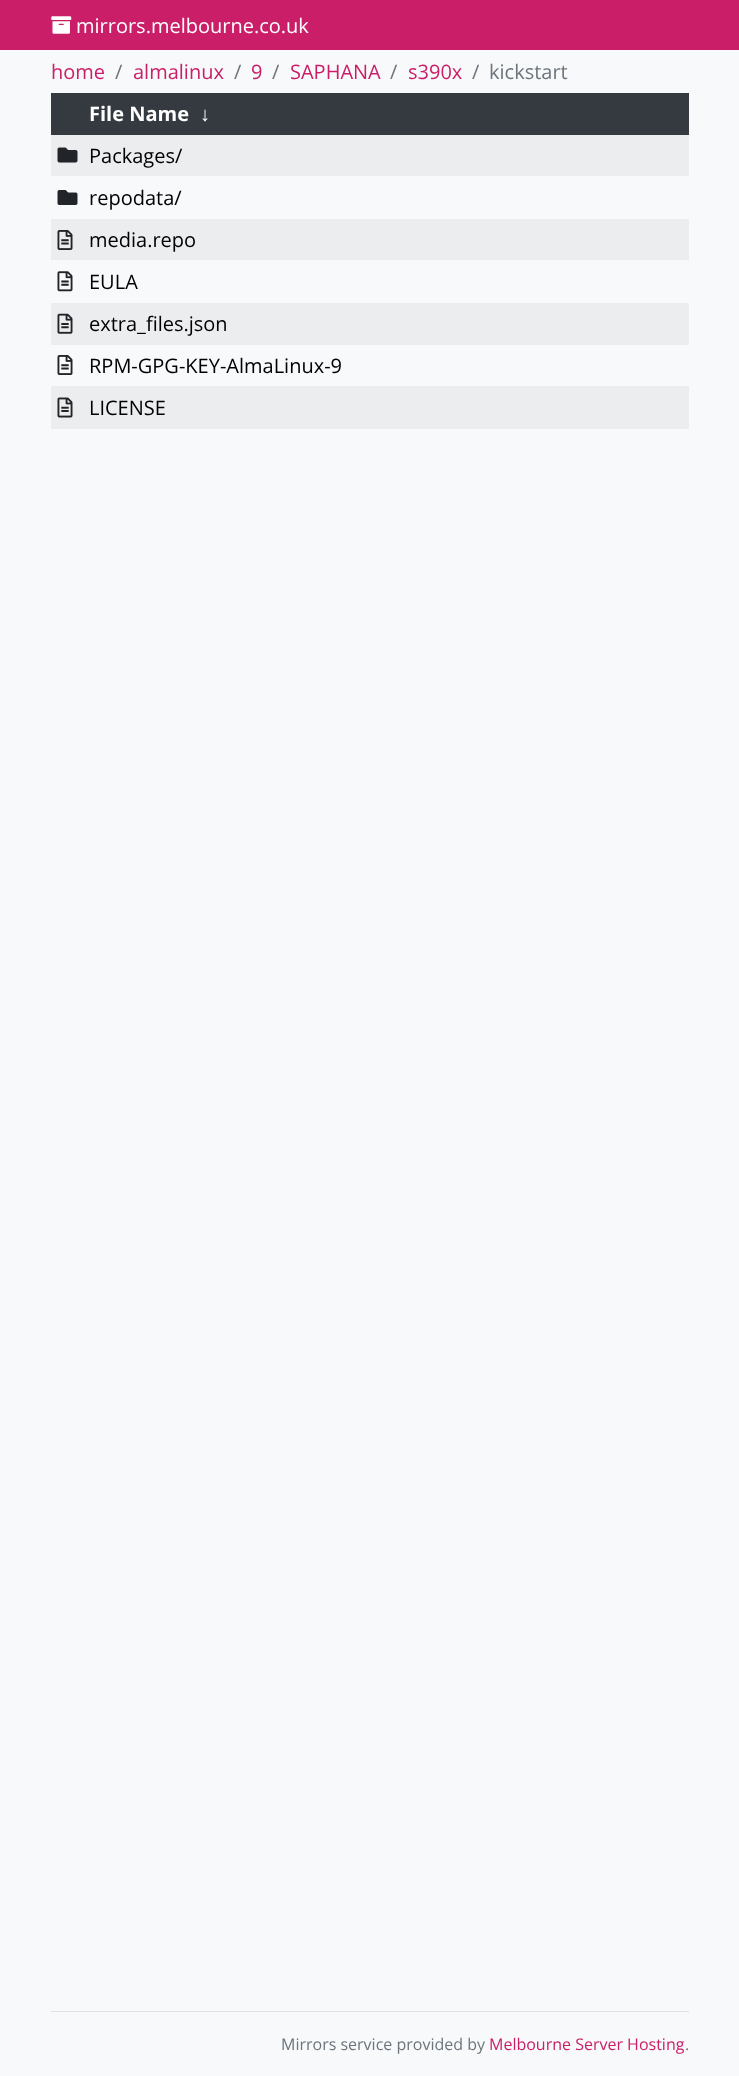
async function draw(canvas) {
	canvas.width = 739;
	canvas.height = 2076;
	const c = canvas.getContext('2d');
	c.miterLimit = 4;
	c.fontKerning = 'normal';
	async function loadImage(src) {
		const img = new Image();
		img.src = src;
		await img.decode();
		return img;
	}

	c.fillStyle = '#f8f9fa';
	c.fillRect(0, 0, 739, 2076);
	c.fillStyle = '#ca1e69';
	c.fillRect(0, 0, 739, 50);
	c.drawImage(await loadImage('img1.png'), 51, 16, 21, 18);
	c.font = '20px Open Sans';
	c.fillStyle = '#fff';
	c.fillText('mirrors.melbourne.co.uk', 76, 33);
	c.fillStyle = '#ca1e69';
	c.fillText('home', 51, 79);
	c.fillStyle = '#6c757d';
	c.fillText('/', 115, 79);
	c.fillStyle = '#ca1e69';
	c.fillText('almalinux', 133, 79);
	c.fillStyle = '#6c757d';
	c.fillText('/', 234, 79);
	c.fillStyle = '#ca1e69';
	c.fillText('9', 251, 79);
	c.fillStyle = '#6c757d';
	c.fillText('/', 272, 79);
	c.fillStyle = '#ca1e69';
	c.fillText('SAPHANA', 290, 79);
	c.fillStyle = '#6c757d';
	c.fillText('/', 390, 79);
	c.fillStyle = '#ca1e69';
	c.fillText('s390x', 408, 79);
	c.fillStyle = '#6c757d';
	c.fillText('/', 472, 79);
	c.fillText('kickstart', 489, 79);
	c.fillStyle = '#343a40';
	c.fillRect(51, 93, 638, 42);
	c.font = 'bold 20px Open Sans';
	c.fillStyle = '#fff';
	c.fillText('File Name', 89, 121);
	c.font = 'bold 20px Liberation Sans';
	c.fillText('↓', 200, 121);
	c.fillStyle = '#ecedee';
	c.fillRect(51, 135, 638, 41);
	c.drawImage(await loadImage('img2.png'), 57, 147, 21, 16);
	c.font = '20px Open Sans';
	c.fillStyle = '#000';
	c.fillText('Packages/', 89, 163);
	c.drawImage(await loadImage('img3.png'), 57, 190, 21, 15);
	c.fillText('repodata/', 89, 205);
	c.fillStyle = '#ecedee';
	c.fillRect(51, 219, 638, 41);
	c.drawImage(await loadImage('img4.png'), 57, 230, 16, 20);
	c.fillStyle = '#000';
	c.fillText('media.repo', 89, 247);
	c.drawImage(await loadImage('img5.png'), 57, 271, 16, 21);
	c.fillText('EULA', 89, 289);
	c.fillStyle = '#ecedee';
	c.fillRect(51, 303, 638, 42);
	c.drawImage(await loadImage('img6.png'), 57, 313, 16, 21);
	c.fillStyle = '#000';
	c.fillText('extra_files.json', 89, 331);
	c.drawImage(await loadImage('img7.png'), 57, 355, 16, 20);
	c.fillText('RPM-GPG-KEY-AlmaLinux-9', 89, 373);
	c.fillStyle = '#ecedee';
	c.fillRect(51, 386, 638, 43);
	c.drawImage(await loadImage('img8.png'), 57, 397, 16, 21);
	c.fillStyle = '#000';
	c.fillText('LICENSE', 89, 415);
	c.fillStyle = '#dfe0e1';
	c.fillRect(51, 2011, 638, 1);
	c.font = '16px Open Sans';
	c.fillStyle = '#6c757d';
	c.fillText('Mirrors service provided by', 281, 2050);
	c.fillStyle = '#ca1e69';
	c.fillText('Melbourne Server Hosting', 489, 2050);
	c.fillStyle = '#6c757d';
	c.fillText('.', 685, 2050);
}

draw(document.querySelector('canvas'));
